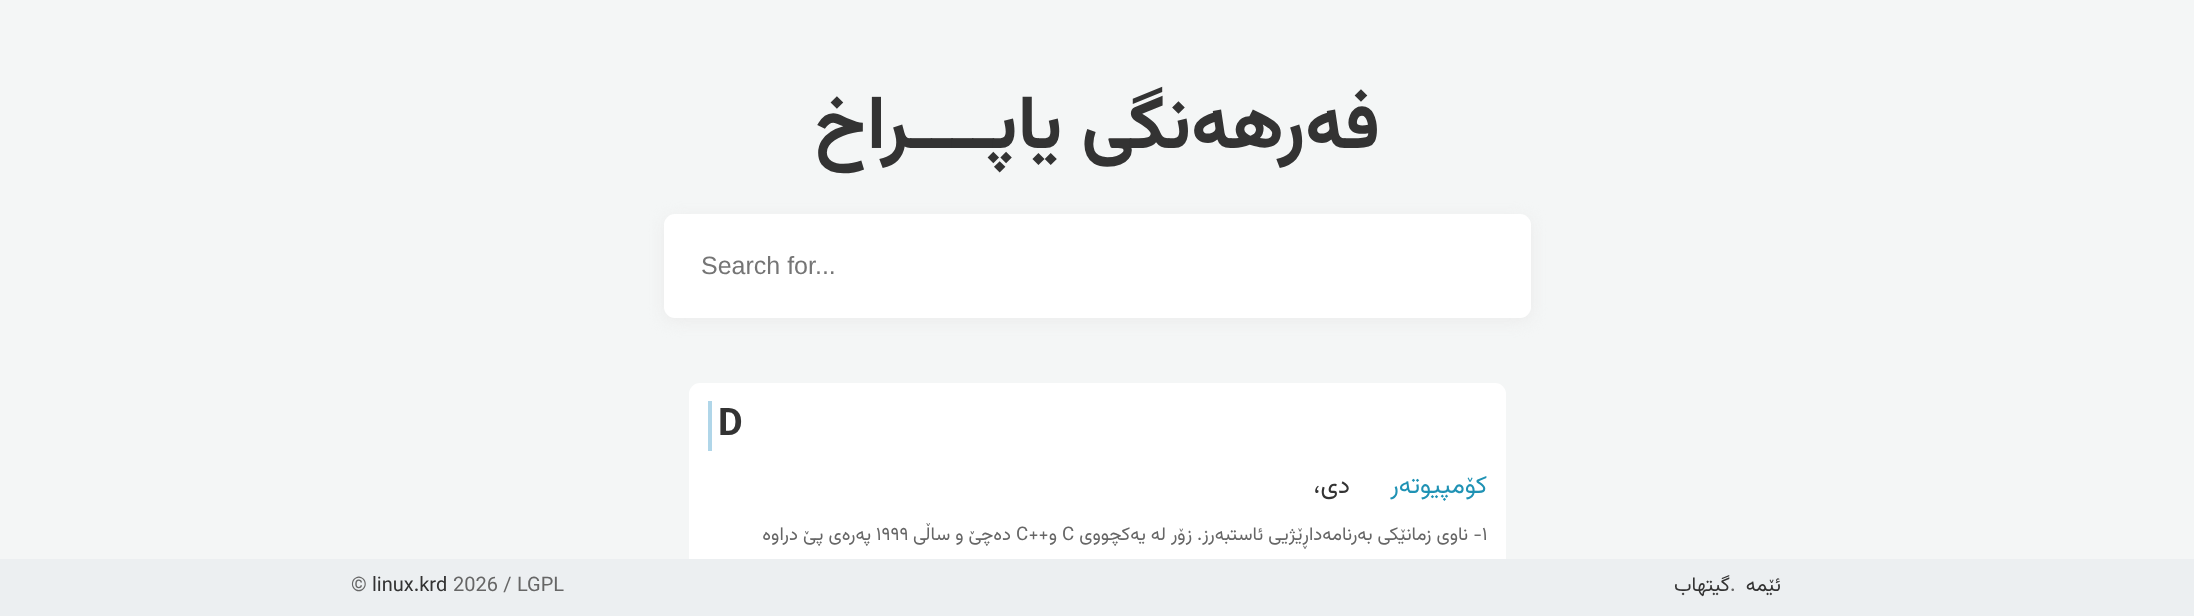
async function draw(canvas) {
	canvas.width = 2194;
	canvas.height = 616;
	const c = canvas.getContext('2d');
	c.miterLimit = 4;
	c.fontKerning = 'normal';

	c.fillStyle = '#f4f6f6';
	c.fillRect(0, 0, 2194, 616);
	c.direction = 'rtl';
	c.font = 'bold 75px Vazirmatn';
	c.fillStyle = '#333';
	c.fillText('فەرهەنگی یاپــــراخ', 1380, 148);
	c.fillStyle = '#ebebeb';
	c.filter = 'blur(7.5px)';
	c.beginPath();
	c.roundRect(664, 218, 867, 103, 11);
	c.fill();
	c.filter = 'none';
	c.fillStyle = '#fff';
	c.beginPath();
	c.roundRect(664, 214, 867, 104, 11);
	c.fill();
	c.direction = 'ltr';
	c.font = '25px Liberation Sans';
	c.fillStyle = '#757575';
	c.fillText('Search for...', 701, 274);
	c.fillStyle = '#fff';
	c.beginPath();
	c.roundRect(689, 383, 817, 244, 11);
	c.fill();
	c.fillStyle = '#b0d6e9';
	c.fillRect(708, 401, 4, 50);
	c.font = 'bold 38px Vazirmatn';
	c.fillStyle = '#333';
	c.fillText('D', 718, 435);
	c.direction = 'rtl';
	c.font = '25px Vazirmatn';
	c.fillStyle = '#1f92b4';
	c.fillText('کۆمپیوتەر', 1487, 493);
	c.fillStyle = '#333';
	c.fillText('دی،', 1350, 493);
	c.direction = 'ltr';
	c.font = '18.75px Vazirmatn';
	c.fillStyle = '#666';
	c.fillText('١', 1482, 540);
	c.direction = 'rtl';
	c.fillText('- ناوی زمانێکی به‌رنامه‌داڕێژیی ئاستبه‌رز. زۆر له‌ یه‌كچووی', 1482, 540);
	c.direction = 'ltr';
	c.fillText('C', 1062, 540);
	c.direction = 'rtl';
	c.fillText('و++', 1057, 540);
	c.direction = 'ltr';
	c.fillText('C', 1016, 540);
	c.direction = 'rtl';
	c.fillText('ده‌چێ و ساڵی', 1011, 540);
	c.direction = 'ltr';
	c.fillText('١٩٩٩', 876, 540);
	c.direction = 'rtl';
	c.fillText('په‌ره‌ی پێ دراوه‌', 871, 540);
	c.fillStyle = '#eceff1';
	c.fillRect(0, 559, 2194, 57);
	c.font = '20px Vazirmatn';
	c.fillStyle = '#333';
	c.fillText('ئێمە', 1781, 591);
	c.direction = 'ltr';
	c.fillStyle = '#666';
	c.fillText('.', 1730, 591);
	c.direction = 'rtl';
	c.fillStyle = '#333';
	c.fillText('گیتهاب', 1730, 591);
	c.direction = 'ltr';
	c.fillStyle = '#666';
	c.fillText('2026 / LGPL', 453, 591);
	c.fillStyle = '#333';
	c.fillText('linux.krd', 372, 591);
	c.fillStyle = '#666';
	c.fillText('©', 351, 591);
}

draw(document.querySelector('canvas'));
